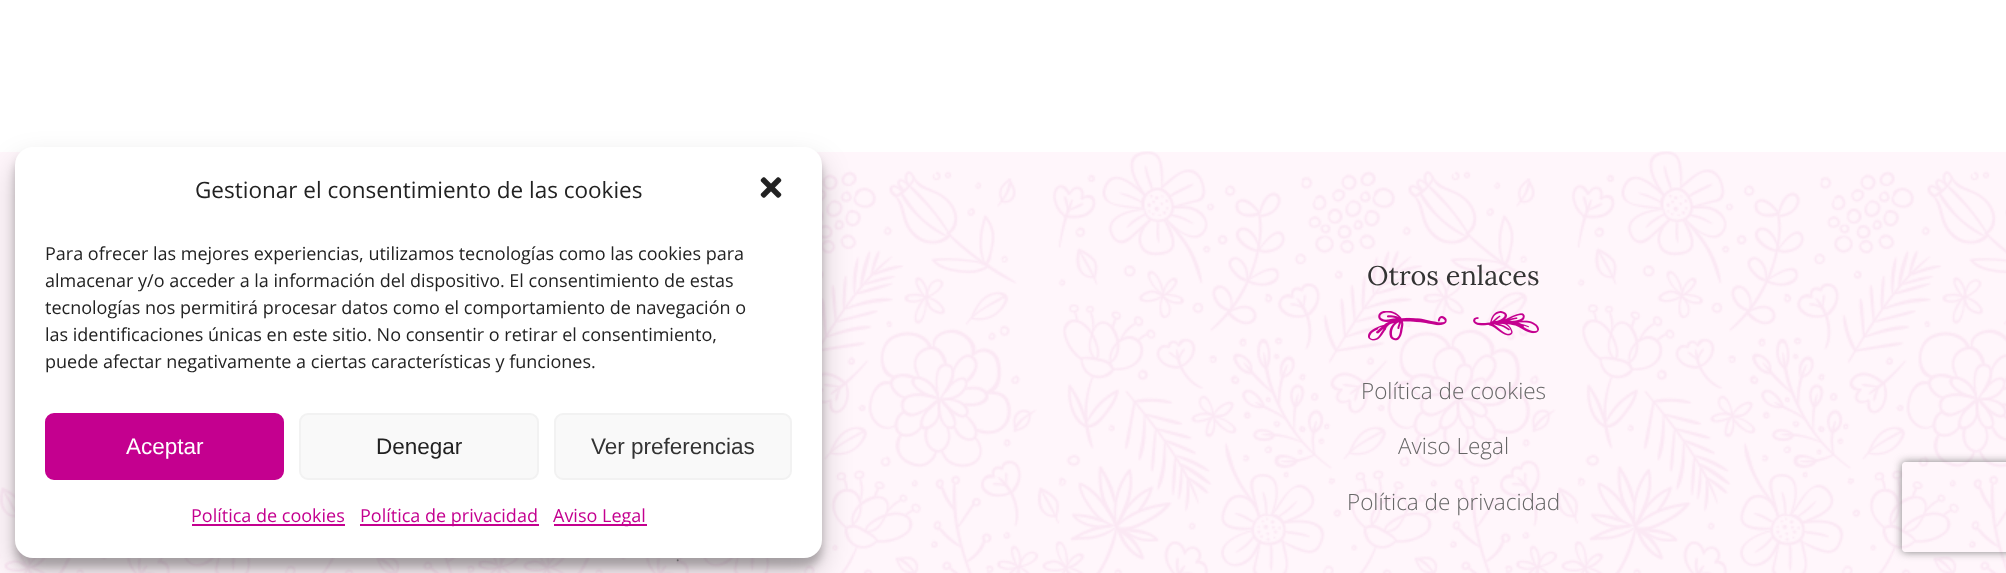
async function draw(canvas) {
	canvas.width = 2006;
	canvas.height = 573;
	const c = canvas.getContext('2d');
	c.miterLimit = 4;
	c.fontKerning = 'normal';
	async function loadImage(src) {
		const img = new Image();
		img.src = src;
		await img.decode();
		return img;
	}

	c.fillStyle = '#fff';
	c.fillRect(0, 0, 2006, 573);
	c.fillStyle = '#fff6fb';
	c.fillRect(0, 152, 2006, 421);
	c.drawImage(await loadImage('img2.png'), 0, 151, 2006, 422);
	c.fillStyle = '#0000003b';
	c.filter = 'blur(4.5px)';
	c.beginPath();
	c.roundRect(15, 156, 807, 411, 18);
	c.fill();
	c.filter = 'none';
	c.fillStyle = '#00000030';
	c.filter = 'blur(15px)';
	c.beginPath();
	c.roundRect(15, 162, 807, 411, 18);
	c.fill();
	c.filter = 'none';
	c.fillStyle = '#fff';
	c.beginPath();
	c.roundRect(15, 147, 807, 411, 18);
	c.fill();
	c.font = '22.5px Open Sans';
	c.fillStyle = '#222';
	c.fillText('Gestionar el consentimiento de las cookies', 195, 198);
	c.drawImage(await loadImage('img1.png'), 760, 177, 22, 21);
	c.font = '18px Open Sans';
	for (const [text, x, y] of [
		['Para ofrecer las mejores experiencias, utilizamos tecnologías como las cookies para', 45, 260],
		['almacenar y/o acceder a la información del dispositivo. El consentimiento de estas', 45, 287],
		['tecnologías nos permitirá procesar datos como el comportamiento de navegación o', 45, 314],
		['las identificaciones únicas en este sitio. No consentir o retirar el consentimiento,', 45, 341],
		['puede afectar negativamente a ciertas características y funciones.', 45, 368],
	]) {
		c.fillText(text, x, y);
	}
	c.fillStyle = '#c4008f';
	c.beginPath();
	c.roundRect(46, 414, 237, 65, 8);
	c.fill();
	c.strokeStyle = '#c4008f';
	c.lineWidth = 2;
	c.stroke();
	c.font = '22.5px Liberation Sans';
	c.fillStyle = '#fff';
	c.fillText('Aceptar', 126, 454);
	c.fillStyle = '#f9f9f9';
	c.beginPath();
	c.roundRect(300, 414, 238, 65, 8);
	c.fill();
	c.strokeStyle = '#f2f2f2';
	c.stroke();
	c.fillStyle = '#222';
	c.fillText('Denegar', 376, 454);
	c.fillStyle = '#f9f9f9';
	c.beginPath();
	c.roundRect(555, 414, 236, 65, 8);
	c.fill();
	c.stroke();
	c.fillStyle = '#333';
	c.fillText('Ver preferencias', 591, 454);
	c.font = '18px Open Sans';
	c.fillStyle = '#c4008f';
	c.fillText('Política de cookies', 191, 522);
	c.fillRect(192, 524, 153, 2);
	c.fillRect(360, 524, 179, 2);
	c.fillText('Política de privacidad', 360, 522);
	c.fillRect(554, 524, 93, 2);
	c.fillText('Aviso Legal', 553, 522);
	c.drawImage(await loadImage('img3.png'), 1368, 311, 171, 30);
	c.font = '27px Lora';
	c.fillStyle = '#333';
	c.fillText('Otros enlaces', 1367, 285);
	c.font = '300 22.5px Open Sans';
	c.fillStyle = '#666';
	for (const [text, x, y] of [
		['Política de cookies', 1361, 399],
		['Aviso Legal', 1398, 454],
		['Política de privacidad', 1347, 510],
		['.', 675, 561],
	]) {
		c.fillText(text, x, y);
	}
	c.save();
	c.beginPath();
	c.moveTo(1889, 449);
	c.lineTo(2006, 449);
	c.lineTo(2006, 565);
	c.lineTo(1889, 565);
	c.closePath();
	c.moveTo(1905, 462);
	c.lineTo(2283, 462);
	c.bezierCurveTo(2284.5, 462, 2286, 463.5, 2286, 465);
	c.lineTo(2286, 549);
	c.bezierCurveTo(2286, 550.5, 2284.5, 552, 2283, 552);
	c.lineTo(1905, 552);
	c.bezierCurveTo(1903.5, 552, 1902, 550.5, 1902, 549);
	c.lineTo(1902, 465);
	c.bezierCurveTo(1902, 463.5, 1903.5, 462, 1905, 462);
	c.closePath();
	c.clip('evenodd');
	c.fillStyle = '#808080';
	c.filter = 'blur(4px)';
	c.beginPath();
	c.roundRect(1902, 462, 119, 90, 3);
	c.fill();
	c.filter = 'none';
	c.restore();
}

draw(document.querySelector('canvas'));
